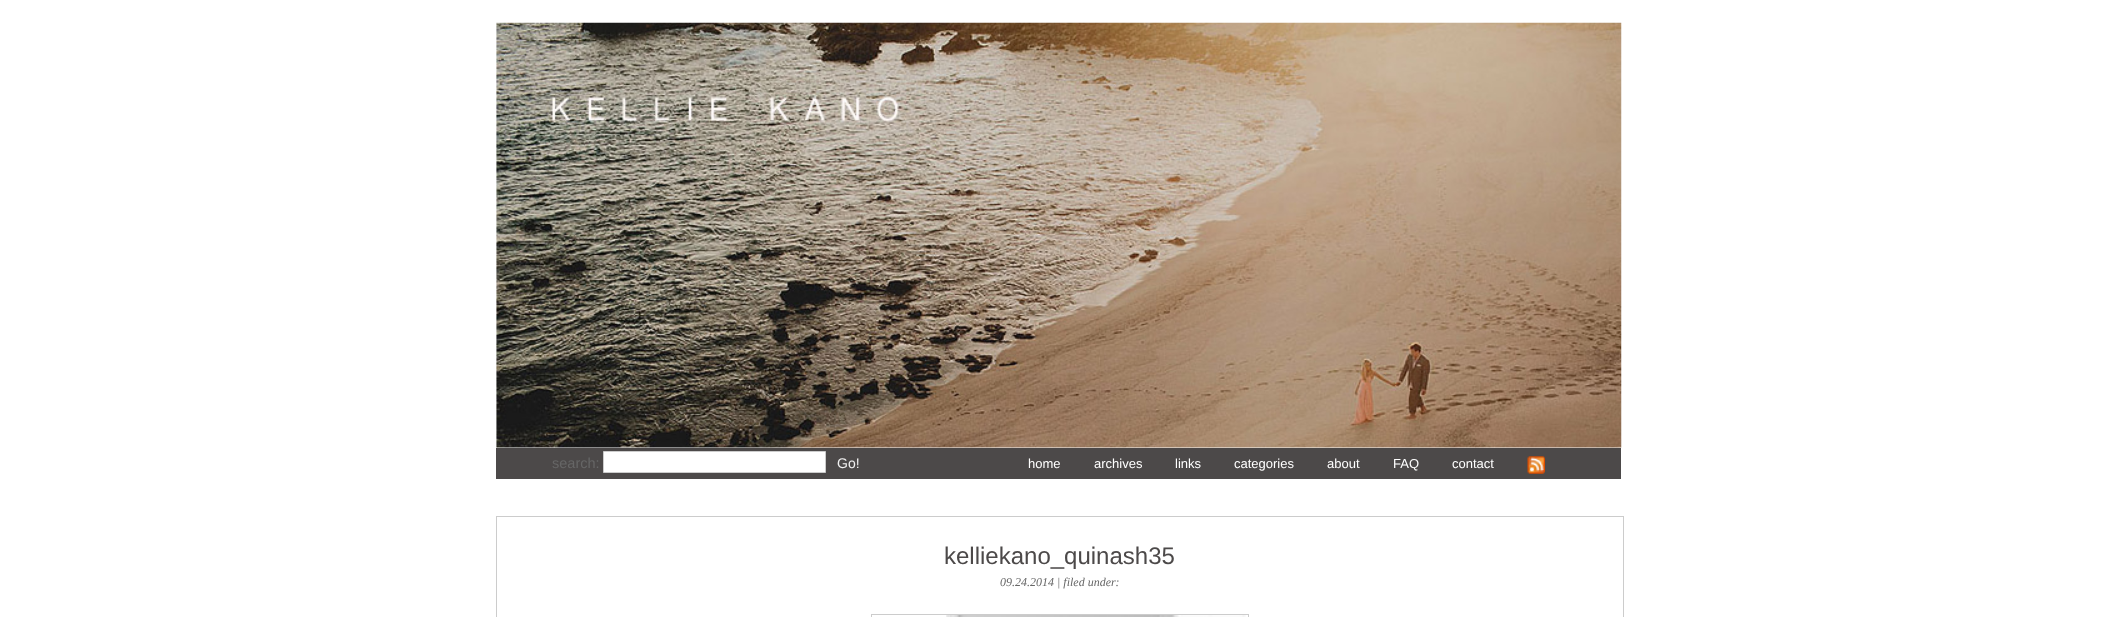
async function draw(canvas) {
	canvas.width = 2116;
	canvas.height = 617;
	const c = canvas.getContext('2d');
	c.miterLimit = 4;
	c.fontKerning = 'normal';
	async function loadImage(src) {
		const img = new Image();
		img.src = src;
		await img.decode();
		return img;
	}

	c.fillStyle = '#fff';
	c.fillRect(0, 0, 2116, 617);
	c.drawImage(await loadImage('img1.png'), 496, 22, 1126, 426);
	c.fillStyle = '#4c4949';
	c.fillRect(496, 448, 1125, 31);
	c.font = '14.5px Liberation Sans';
	c.fillStyle = '#666';
	c.fillText('search:', 552, 468);
	c.fillStyle = '#fff';
	c.beginPath();
	c.rect(603.5, 451.5, 222, 21);
	c.fill();
	c.strokeStyle = '#ccc';
	c.stroke();
	c.font = '14px Liberation Sans';
	c.fillStyle = '#f1f1f1';
	c.fillText('Go!', 837, 468);
	c.font = '13px Liberation Sans';
	c.fillStyle = '#fff';
	for (const [text, x, y] of [
		['home', 1028, 468],
		['archives', 1094, 468],
		['links', 1175, 468],
		['categories', 1234, 468],
		['about', 1327, 468],
		['FAQ', 1393, 468],
		['contact', 1452, 468],
	]) {
		c.fillText(text, x, y);
	}
	c.drawImage(await loadImage('img2.png'), 1527, 456, 18, 18);
	c.strokeRect(496.5, 516.5, 1127, 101);
	c.font = '24px Liberation Sans';
	c.fillStyle = '#4c4949';
	c.fillText('kelliekano_quinash35', 944, 564);
	c.font = 'italic 12px Liberation Serif';
	c.fillStyle = '#666';
	c.fillText('09.24.2014 | filed under:', 1000, 586);
	c.strokeRect(871.5, 614.5, 377, 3);
	c.drawImage(await loadImage('img3.png'), 946, 615, 300, 2);
}

draw(document.querySelector('canvas'));
